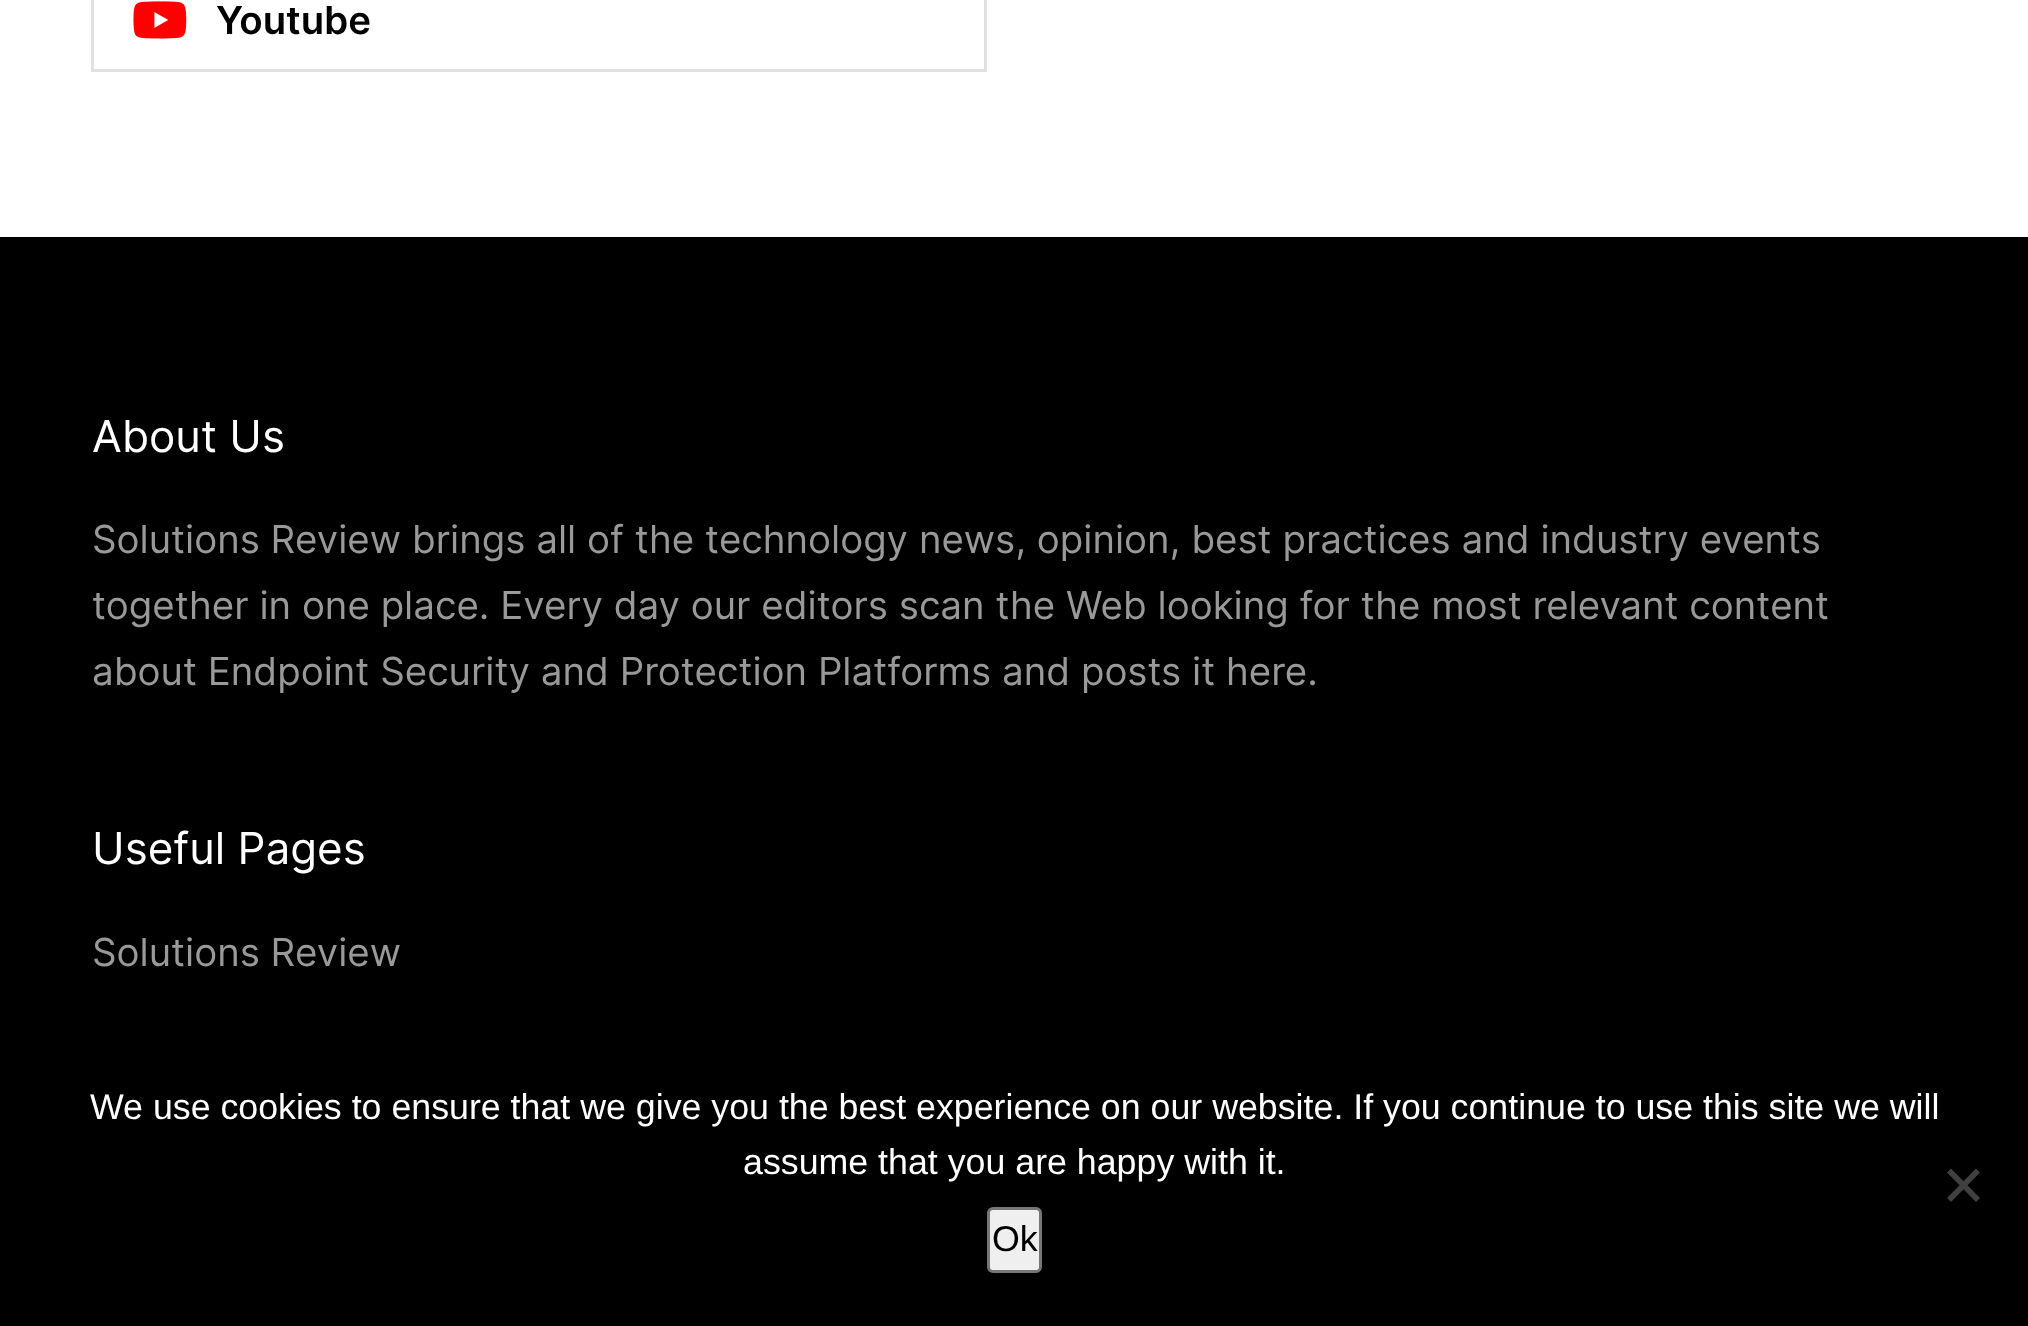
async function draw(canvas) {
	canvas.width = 2028;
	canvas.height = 1326;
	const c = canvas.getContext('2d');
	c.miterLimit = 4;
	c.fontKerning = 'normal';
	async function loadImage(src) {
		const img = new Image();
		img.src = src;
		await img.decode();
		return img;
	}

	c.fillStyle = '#fff';
	c.fillRect(0, 0, 2028, 1326);
	c.strokeStyle = '#e1e1e1';
	c.lineWidth = 3;
	c.strokeRect(92.5, -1.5, 893, 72);
	c.drawImage(await loadImage('img1.png'), 133, 1, 54, 38);
	c.font = '600 38.5px Inter';
	c.fillStyle = '#000';
	c.fillText('Youtube', 216, 34);
	c.fillRect(0, 237, 2028, 1089);
	c.font = '44px Inter';
	c.fillStyle = '#fff';
	c.fillText('About Us', 92, 452);
	c.font = '38.5px Inter';
	c.fillStyle = '#999';
	for (const [text, x, y] of [
		['Solutions Review brings all of the technology news, opinion, best practices and industry events', 92, 553],
		['together in one place. Every day our editors scan the Web looking for the most relevant content', 92, 619],
		['about Endpoint Security and Protection Platforms and posts it here.', 92, 685],
	]) {
		c.fillText(text, x, y);
	}
	c.font = '44px Inter';
	c.fillStyle = '#fff';
	c.fillText('Useful Pages', 92, 864);
	c.font = '38.5px Inter';
	c.fillStyle = '#999';
	c.fillText('Solutions Review', 92, 966);
	c.font = '35.75px Liberation Sans';
	c.fillStyle = '#fff';
	c.fillText('We use cookies to ensure that we give you the best experience on our website. If you continue to use this site we will', 90, 1119);
	c.fillText('assume that you are happy with it.', 743, 1174);
	c.fillStyle = '#404040';
	c.beginPath();
	c.moveTo(1976, 1168.5);
	c.lineTo(1980, 1172.5);
	c.lineTo(1951, 1202);
	c.lineTo(1947, 1198);
	c.closePath();
	c.fill();
	c.beginPath();
	c.moveTo(1947, 1172.5);
	c.lineTo(1951, 1168.5);
	c.lineTo(1980, 1198);
	c.lineTo(1976, 1202);
	c.closePath();
	c.fill();
	c.fillStyle = '#efefef';
	c.beginPath();
	c.roundRect(988.5, 1208.5, 52, 63, 4.5);
	c.fill();
	c.strokeStyle = '#767676';
	c.stroke();
	c.fillStyle = '#000';
	c.fillText('Ok', 992, 1251);
}

draw(document.querySelector('canvas'));
